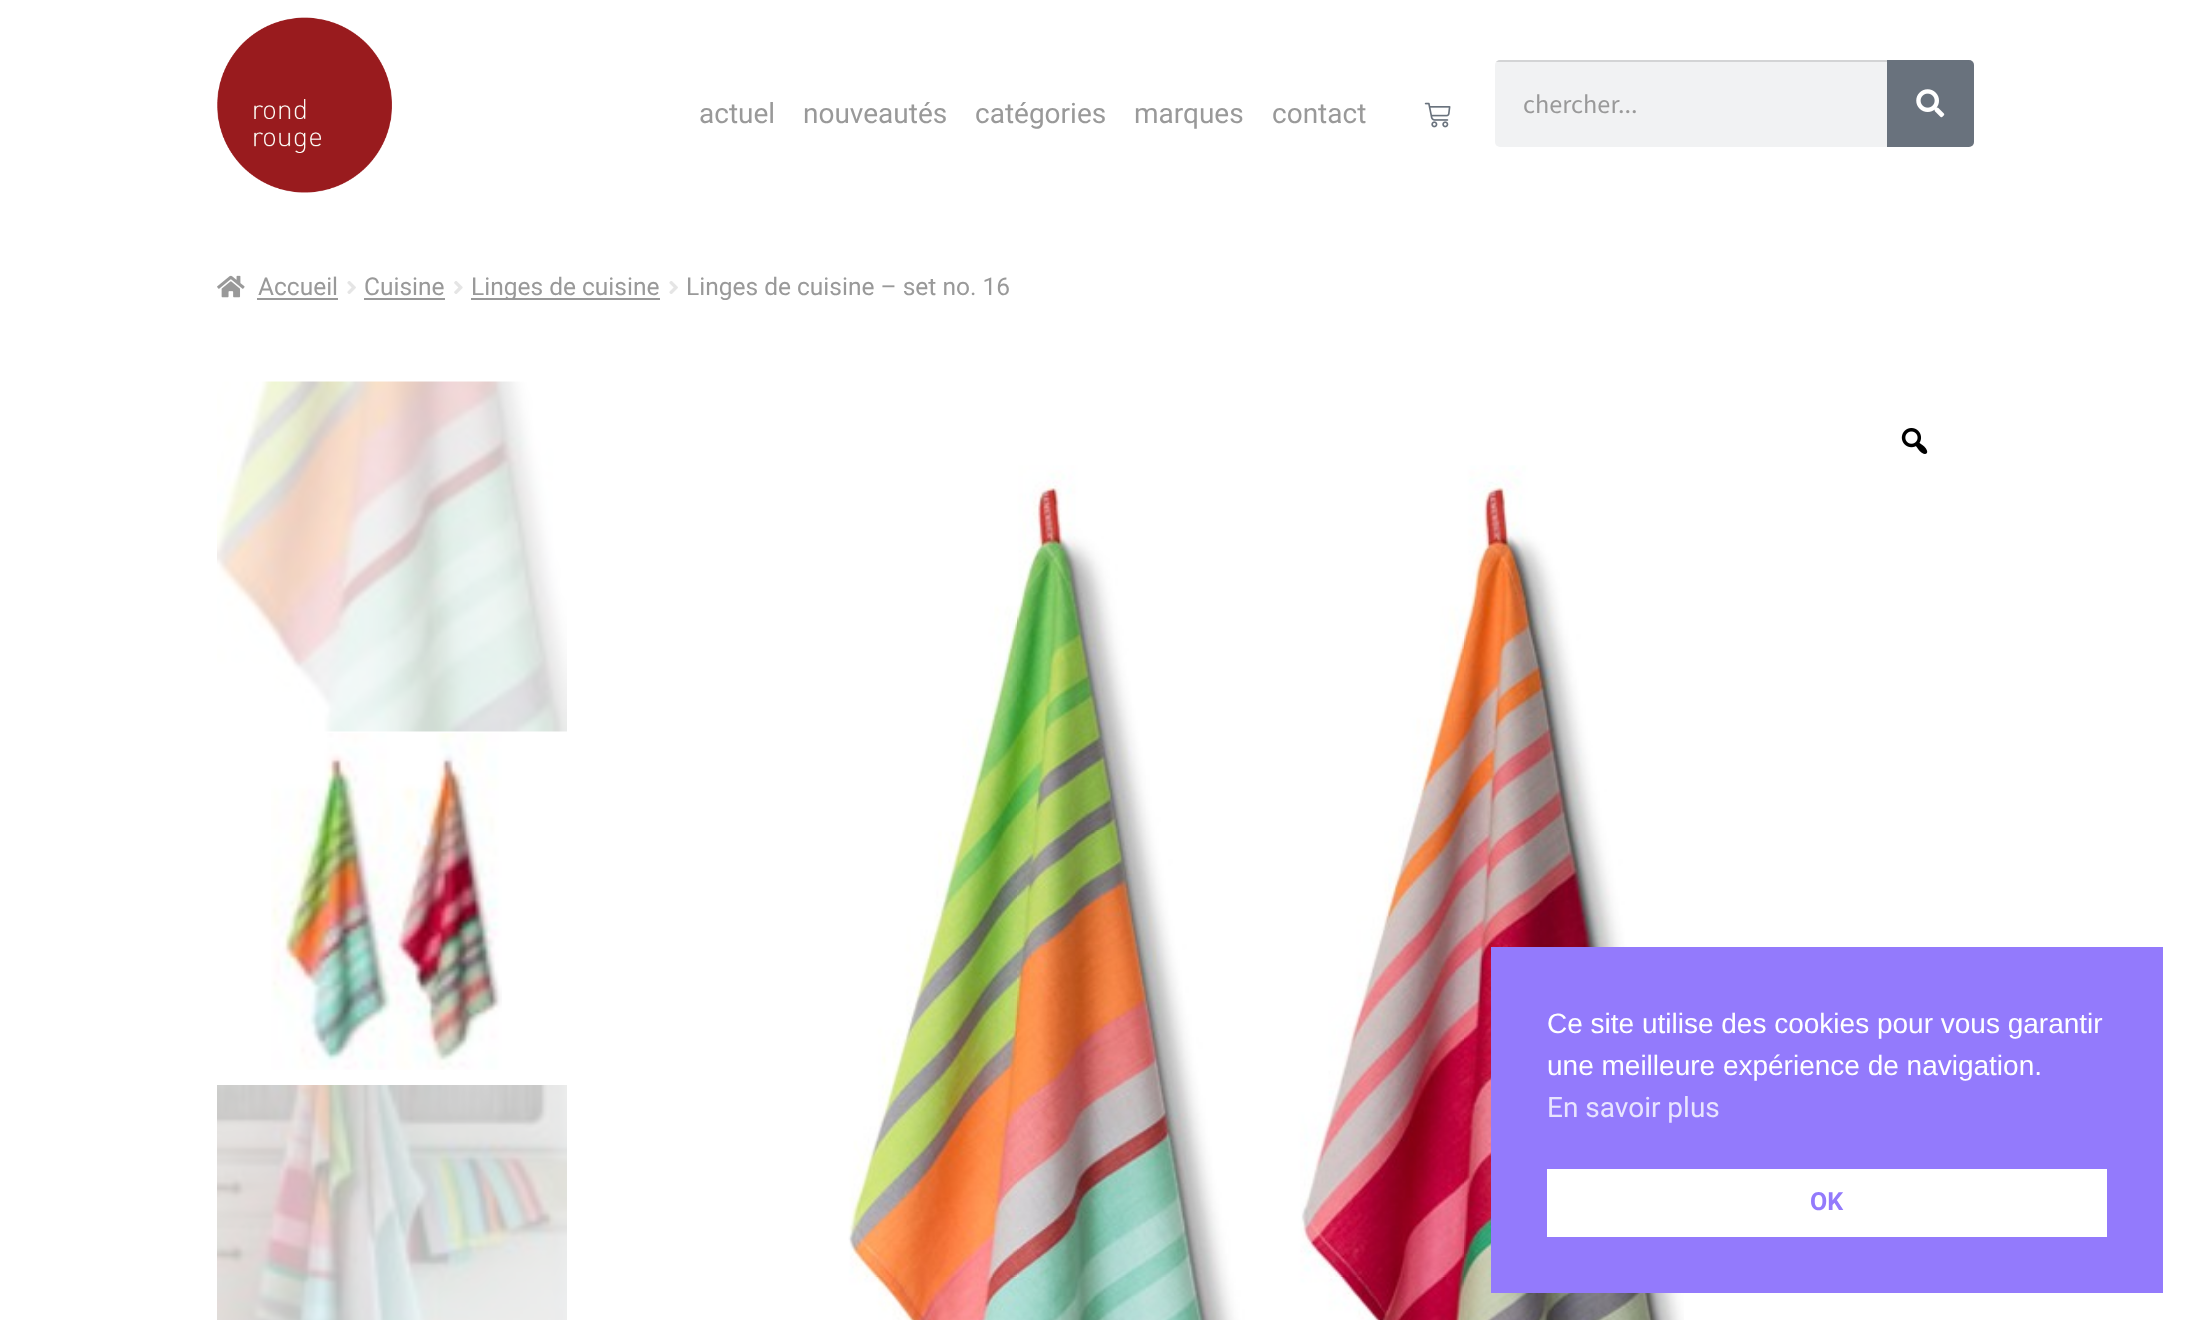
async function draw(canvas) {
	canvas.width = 2190;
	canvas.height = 1320;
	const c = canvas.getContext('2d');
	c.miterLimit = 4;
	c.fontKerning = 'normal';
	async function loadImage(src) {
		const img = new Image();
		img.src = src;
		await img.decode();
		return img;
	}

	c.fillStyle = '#fff';
	c.fillRect(0, 0, 2190, 1320);
	c.drawImage(await loadImage('img1.png'), 217, 17, 175, 176);
	c.font = '28px Roboto';
	c.fillStyle = '#999';
	for (const [text, x, y] of [
		['actuel', 699, 123],
		['nouveautés', 803, 123],
		['catégories', 975, 123],
		['marques', 1134, 123],
		['contact', 1272, 123],
	]) {
		c.fillText(text, x, y);
	}
	c.drawImage(await loadImage('img2.png'), 1424, 102, 27, 26);
	c.fillStyle = '#f1f2f3';
	c.beginPath();
	c.roundRect(1495, 60, 479, 87, 5);
	c.fill();
	c.save();
	c.beginPath();
	c.roundRect(1495, 60, 479, 87, 5);
	c.clip();
	c.fillStyle = '#0000001f';
	c.fillRect(1495, 60, 392, 2);
	c.restore();
	c.font = '26.25px Source Sans Pro';
	c.fillStyle = '#999';
	c.fillText('chercher...', 1523, 113);
	c.fillStyle = '#69727d';
	c.beginPath();
	c.roundRect(1887, 60, 87, 87, [0, 5, 5, 0]);
	c.fill();
	c.drawImage(await loadImage('img3.png'), 1916, 89, 29, 29);
	c.drawImage(await loadImage('img4.png'), 217, 275, 28, 23);
	c.font = '24.5px Roboto';
	c.fillStyle = '#999';
	c.fillText('Accueil', 258, 295);
	c.fillRect(257, 298, 81, 2);
	c.drawImage(await loadImage('img5.png'), 347, 281, 9, 13);
	c.fillText('Cuisine', 364, 295);
	c.fillRect(364, 298, 81, 2);
	c.drawImage(await loadImage('img6.png'), 454, 281, 9, 13);
	c.fillRect(471, 298, 189, 2);
	c.fillText('Linges de cuisine', 471, 295);
	c.drawImage(await loadImage('img5.png'), 669, 281, 9, 13);
	c.fillText('Linges de cuisine – set no. 16', 686, 295);
	c.drawImage(await loadImage('img7.png'), 217, 381, 350, 351);
	c.drawImage(await loadImage('img8.png'), 271, 733, 231, 337);
	c.drawImage(await loadImage('img9.png'), 217, 1085, 350, 235);
	c.drawImage(await loadImage('img10.png'), 1901, 428, 27, 26);
	c.drawImage(await loadImage('img11.png'), 848, 465, 836, 855);
	c.fillStyle = '#937afc';
	c.fillRect(1491, 947, 672, 346);
	c.font = '28px Liberation Sans';
	c.fillStyle = '#fff';
	c.fillText('Ce site utilise des cookies pour vous garantir', 1547, 1033);
	c.fillText('une meilleure expérience de navigation.', 1547, 1075);
	c.font = '28px Roboto';
	c.fillStyle = '#e9e4fe';
	c.fillText('En savoir plus', 1547, 1117);
	c.fillStyle = '#fff';
	c.fillRect(1547, 1169, 560, 68);
	c.font = 'bold 25px Roboto';
	c.fillStyle = '#937afc';
	c.fillText('OK', 1810, 1210);
}

draw(document.querySelector('canvas'));
